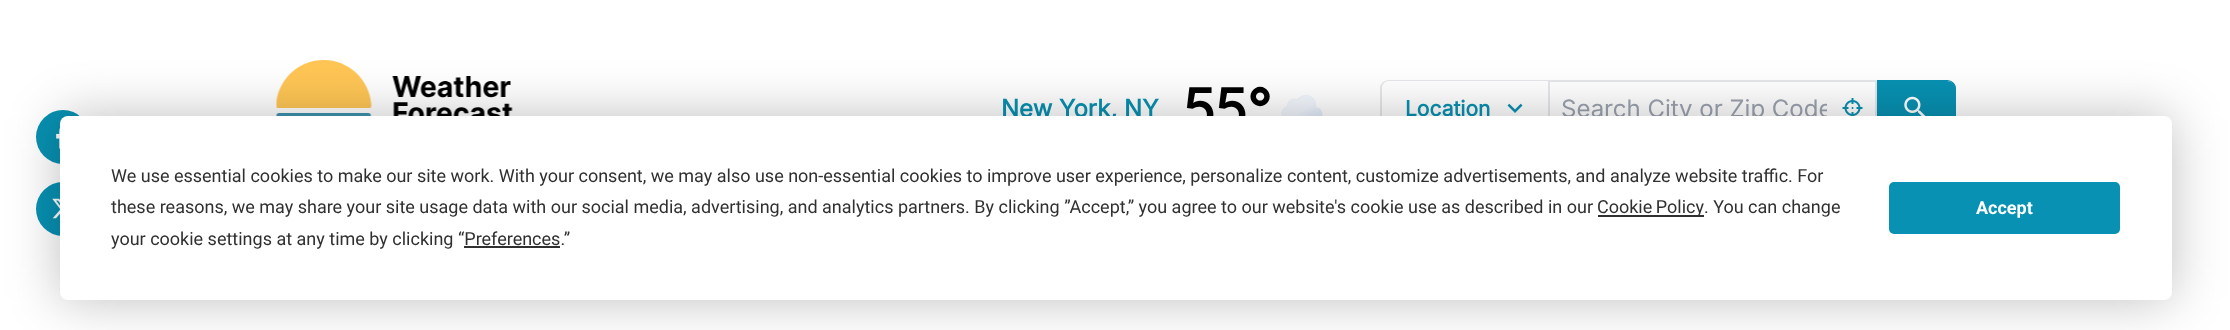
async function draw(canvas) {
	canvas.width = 2230;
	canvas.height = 330;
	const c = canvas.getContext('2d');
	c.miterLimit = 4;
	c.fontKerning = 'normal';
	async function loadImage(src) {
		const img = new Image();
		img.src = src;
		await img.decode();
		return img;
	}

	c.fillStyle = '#fff';
	c.fillRect(0, 0, 2230, 330);
	c.fillStyle = '#0891b2';
	c.beginPath();
	c.arc(63, 137, 27, 0, 2 * Math.PI);
	c.fill();
	c.drawImage(await loadImage('img1.png'), 56, 128, 4, 21);
	c.beginPath();
	c.arc(63, 209, 27, 0, 2 * Math.PI);
	c.fill();
	c.drawImage(await loadImage('img2.png'), 52, 198, 8, 21);
	c.drawImage(await loadImage('img3.png'), 276, 60, 237, 56);
	c.font = 'bold 24px Inter';
	c.fillText('New York, NY', 1001, 117);
	c.font = 'bold 54px Inter';
	c.fillStyle = '#000';
	c.fillText('55°', 1183, 128);
	c.drawImage(await loadImage('img4.png'), 1281, 95, 42, 21);
	c.fillStyle = '#e5e7eb';
	c.beginPath();
	c.moveTo(1389, 80);
	c.lineTo(1548, 80);
	c.lineTo(1548, 136);
	c.lineTo(1389, 136);
	c.bezierCurveTo(1384, 136, 1380, 132, 1380, 128);
	c.lineTo(1380, 88);
	c.bezierCurveTo(1380, 84, 1384, 80, 1389, 80);
	c.closePath();
	c.moveTo(1389, 81);
	c.lineTo(1548, 81);
	c.lineTo(1548, 135);
	c.lineTo(1389, 135);
	c.bezierCurveTo(1385, 135, 1382, 132, 1382, 128);
	c.lineTo(1382, 88);
	c.bezierCurveTo(1382, 84, 1385, 81, 1389, 81);
	c.closePath();
	c.fill('evenodd');
	c.font = 'bold 21px Inter';
	c.fillStyle = '#0891b2';
	c.fillText('Location', 1405, 116);
	c.drawImage(await loadImage('img5.png'), 1507, 103, 16, 10);
	c.beginPath();
	c.roundRect(1877, 81, 78, 54, [0, 8, 8, 0]);
	c.fill();
	c.beginPath();
	c.moveTo(1876, 80);
	c.lineTo(1947, 80);
	c.bezierCurveTo(1952, 80, 1956, 84, 1956, 88);
	c.lineTo(1956, 128);
	c.bezierCurveTo(1956, 132, 1952, 136, 1947, 136);
	c.lineTo(1876, 136);
	c.closePath();
	c.moveTo(1876, 81);
	c.lineTo(1947, 81);
	c.bezierCurveTo(1951, 81, 1954, 84, 1954, 88);
	c.lineTo(1954, 128);
	c.bezierCurveTo(1954, 132, 1951, 135, 1947, 135);
	c.lineTo(1876, 135);
	c.closePath();
	c.fill('evenodd');
	c.strokeStyle = '#e5e7eb';
	c.lineWidth = 2;
	c.strokeRect(1549, 81, 327, 55);
	c.save();
	c.beginPath();
	c.rect(1562, 93, 265, 30);
	c.clip();
	c.font = '24px Inter';
	c.fillStyle = '#9ca3af';
	c.fillText('Search City or Zip Code', 1561, 117);
	c.restore();
	c.drawImage(await loadImage('img6.png'), 1842, 98, 21, 18);
	c.drawImage(await loadImage('img7.png'), 1904, 96, 22, 20);
	c.fillStyle = '#00000040';
	c.filter = 'blur(26px)';
	c.beginPath();
	c.roundRect(60, 116, 2112, 184, 8);
	c.fill();
	c.filter = 'none';
	c.fillStyle = '#fff';
	c.beginPath();
	c.roundRect(60, 116, 2112, 184, 8);
	c.fill();
	c.font = '18px Roboto';
	c.fillStyle = '#303030';
	c.fillText('We use essential cookies to make our site work. With your consent, we may also use non-essential cookies to improve user experience, personalize content, customize advertisements, and analyze website traffic. For', 111, 182);
	c.fillText('these reasons, we may share your site usage data with our social media, advertising, and analytics partners. By clicking ”Accept,” you agree to our website\'s cookie use as described in our', 111, 213);
	c.fillRect(1598, 215, 106, 2);
	c.wordSpacing = '-1px';
	c.fillText('Cookie Policy', 1597, 213);
	c.wordSpacing = '0px';
	c.fillText('. You can change', 1704, 213);
	c.fillText('your cookie settings at any time by clicking “Preferences.”', 111, 245);
	c.fillRect(464, 246, 96, 2);
	c.fillStyle = '#0891b2';
	c.beginPath();
	c.roundRect(1890, 183, 229, 50, 4);
	c.fill();
	c.strokeStyle = '#0891b2';
	c.stroke();
	c.font = 'bold 18px Roboto';
	c.fillStyle = '#fff';
	c.fillText('Accept', 1976, 214);
}

draw(document.querySelector('canvas'));
